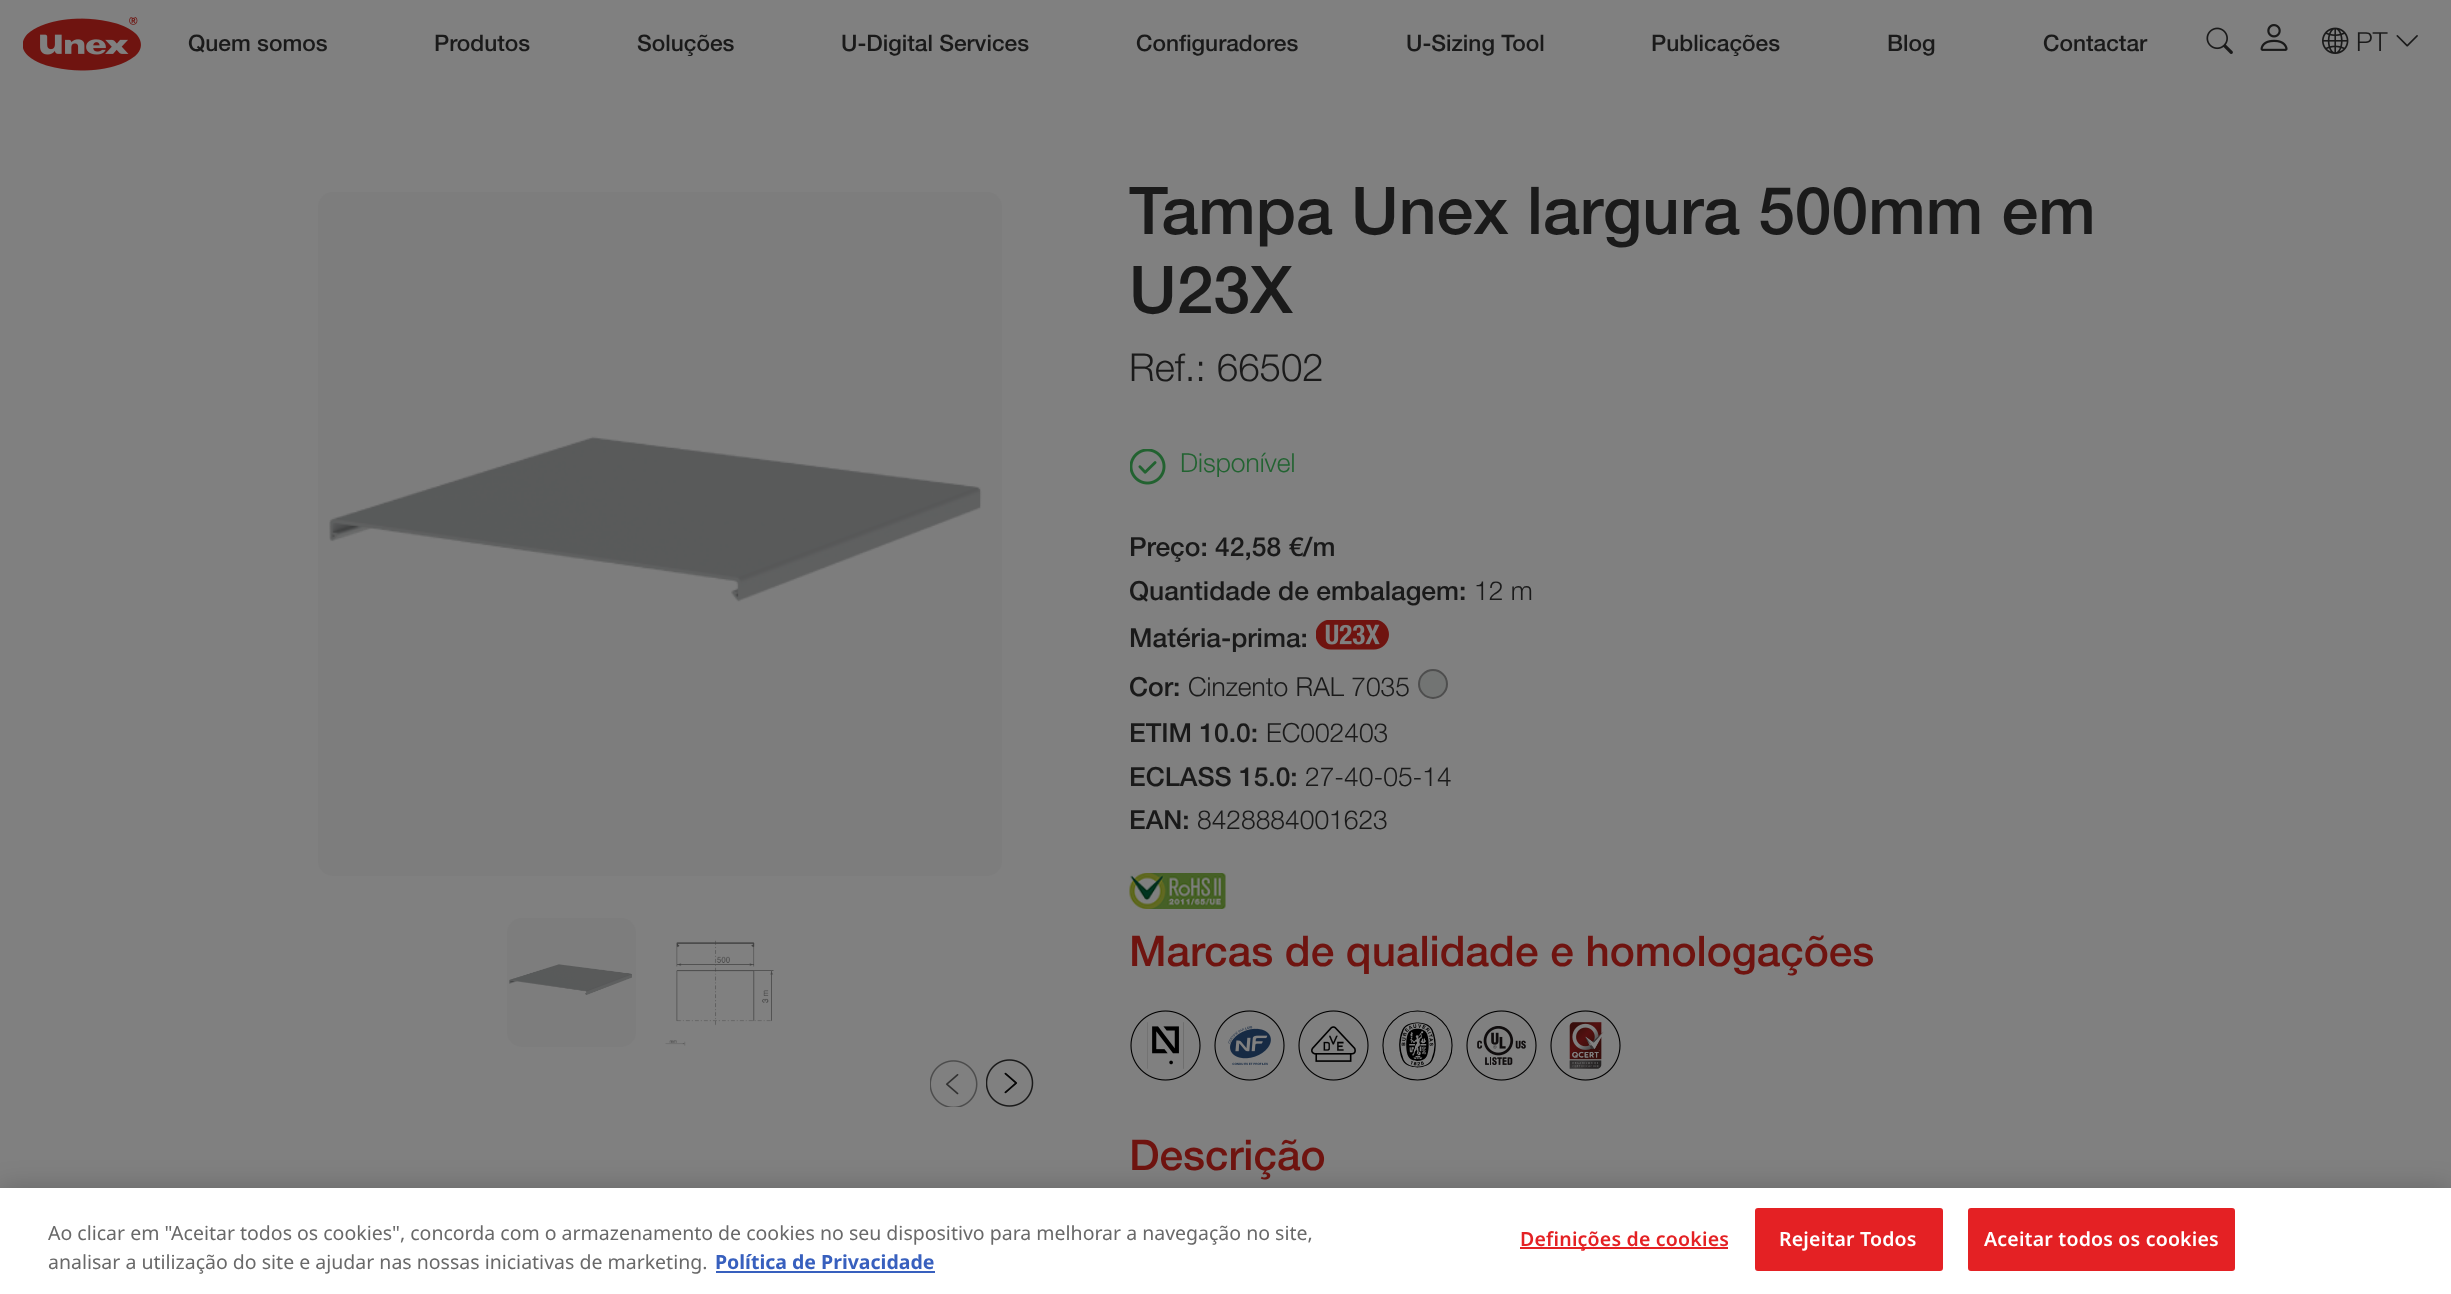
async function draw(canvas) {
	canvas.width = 2451;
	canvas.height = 1294;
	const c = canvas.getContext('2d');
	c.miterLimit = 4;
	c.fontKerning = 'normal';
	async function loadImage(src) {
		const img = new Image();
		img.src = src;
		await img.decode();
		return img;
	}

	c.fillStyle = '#808080';
	c.fillRect(0, 0, 2451, 1294);
	c.drawImage(await loadImage('img1.png'), 23, 17, 118, 54);
	c.font = '500 22.75px Helvetica Neue';
	c.fillStyle = '#1a1a1a';
	for (const [text, x, y] of [
		['Quem somos', 188, 51],
		['Produtos', 434, 51],
		['Soluções', 637, 51],
		['U-Digital Services', 841, 51],
		['Configuradores', 1136, 51],
		['U-Sizing Tool', 1406, 51],
		['Publicações', 1651, 51],
		['Blog', 1887, 51],
		['Contactar', 2043, 51],
	]) {
		c.fillText(text, x, y);
	}
	c.drawImage(await loadImage('img2.png'), 2206, 27, 27, 27);
	c.drawImage(await loadImage('img3.png'), 2260, 24, 28, 27);
	c.drawImage(await loadImage('img4.png'), 2322, 27, 27, 27);
	c.font = '300 26.4px Helvetica Neue';
	c.fillText('PT', 2356, 51);
	c.drawImage(await loadImage('img5.png'), 2396, 35, 22, 12);
	c.fillStyle = '#7d7d7d';
	c.beginPath();
	c.roundRect(318, 192, 684, 684, 15);
	c.fill();
	c.drawImage(await loadImage('img6.png'), 329, 436, 653, 166);
	c.beginPath();
	c.roundRect(507, 918, 129, 129, 15);
	c.fill();
	c.drawImage(await loadImage('img7.png'), 509, 964, 123, 31);
	c.drawImage(await loadImage('img8.png'), 665, 940, 109, 106);
	c.drawImage(await loadImage('img9.png'), 930, 1060, 48, 47);
	c.drawImage(await loadImage('img10.png'), 986, 1059, 48, 48);
	c.font = '500 66px Helvetica Neue';
	c.fillStyle = '#1a1a1a';
	c.fillText('Tampa Unex largura 500mm em', 1129, 234);
	c.fillText('U23X', 1129, 313);
	c.font = '300 38.5px Helvetica Neue';
	c.fillText('Ref.: 66502', 1129, 381);
	c.drawImage(await loadImage('img11.png'), 1130, 449, 36, 36);
	c.font = '300 26.4px Helvetica Neue';
	c.fillStyle = '#226331';
	c.fillText('Disponível', 1180, 472);
	c.font = '500 26.4px Helvetica Neue';
	c.fillStyle = '#1a1a1a';
	c.fillText('Preço: 42,58 €/m', 1129, 556);
	c.fillText('Quantidade de embalagem:', 1129, 600);
	c.font = '300 26.4px Helvetica Neue';
	c.fillText('12 m', 1474, 600);
	c.font = '500 26.4px Helvetica Neue';
	c.fillText('Matéria-prima:', 1129, 647);
	c.drawImage(await loadImage('img12.png'), 1316, 620, 73, 30);
	c.fillText('Cor:', 1129, 696);
	c.font = '300 26.4px Helvetica Neue';
	c.fillText('Cinzento RAL 7035', 1188, 696);
	c.fillStyle = '#727473';
	c.beginPath();
	c.arc(1433, 684, 14, 0, 2 * Math.PI);
	c.fill();
	c.strokeStyle = '#4e4e4e';
	c.lineWidth = 2;
	c.stroke();
	c.font = '500 26.4px Helvetica Neue';
	c.fillStyle = '#1a1a1a';
	c.fillText('ETIM 10.0:', 1129, 742);
	c.font = '300 26.4px Helvetica Neue';
	c.fillText('EC002403', 1266, 742);
	c.font = '500 26.4px Helvetica Neue';
	c.fillText('ECLASS 15.0:', 1129, 786);
	c.font = '300 26.4px Helvetica Neue';
	c.fillText('27-40-05-14', 1305, 786);
	c.font = '500 26.4px Helvetica Neue';
	c.fillText('EAN:', 1129, 829);
	c.font = '300 26.4px Helvetica Neue';
	c.fillText('8428884001623', 1197, 829);
	c.drawImage(await loadImage('img13.png'), 1129, 873, 97, 36);
	c.font = '500 42.25px Helvetica Neue';
	c.fillStyle = '#6f1410';
	c.fillText('Marcas de qualidade e homologações', 1129, 966);
	c.drawImage(await loadImage('img14.png'), 1130, 1010, 71, 71);
	c.drawImage(await loadImage('img15.png'), 1214, 1010, 71, 71);
	c.drawImage(await loadImage('img16.png'), 1298, 1010, 71, 71);
	c.drawImage(await loadImage('img17.png'), 1382, 1010, 71, 71);
	c.drawImage(await loadImage('img18.png'), 1466, 1010, 71, 71);
	c.drawImage(await loadImage('img19.png'), 1550, 1010, 71, 71);
	c.fillText('Descrição', 1129, 1170);
	c.fillStyle = '#00000033';
	c.filter = 'blur(13.5px)';
	c.beginPath();
	c.rect(0, 1188, 2451, 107);
	c.fill();
	c.filter = 'none';
	c.fillStyle = '#fff';
	c.fillRect(0, 1188, 2451, 106);
	c.font = '19.5px Noto Sans';
	c.fillStyle = '#696969';
	c.fillText('Ao clicar em "Aceitar todos os cookies", concorda com o armazenamento de cookies no seu dispositivo para melhorar a navegação no site,', 48, 1240);
	c.fillText('analisar a utilização do site e ajudar nas nossas iniciativas de marketing.', 48, 1269);
	c.font = 'bold 19.5px Noto Sans';
	c.fillStyle = '#3860be';
	c.fillText('Política de Privacidade', 715, 1269);
	c.fillRect(716, 1271, 219, 2);
	c.fillStyle = '#e42124';
	c.fillRect(1520, 1247, 208, 2);
	c.letterSpacing = '0.2px';
	c.font = '600 19.5px Noto Sans';
	c.fillText('Definições de cookies', 1520, 1246);
	c.beginPath();
	c.roundRect(1756, 1209, 186, 61, 2);
	c.fill();
	c.strokeStyle = '#e42124';
	c.stroke();
	c.fillStyle = '#fff';
	c.fillText('Rejeitar Todos', 1779, 1246);
	c.fillStyle = '#e42124';
	c.beginPath();
	c.roundRect(1969, 1209, 265, 61, 2);
	c.fill();
	c.stroke();
	c.fillStyle = '#fff';
	c.fillText('Aceitar todos os cookies', 1984, 1246);
}

draw(document.querySelector('canvas'));
